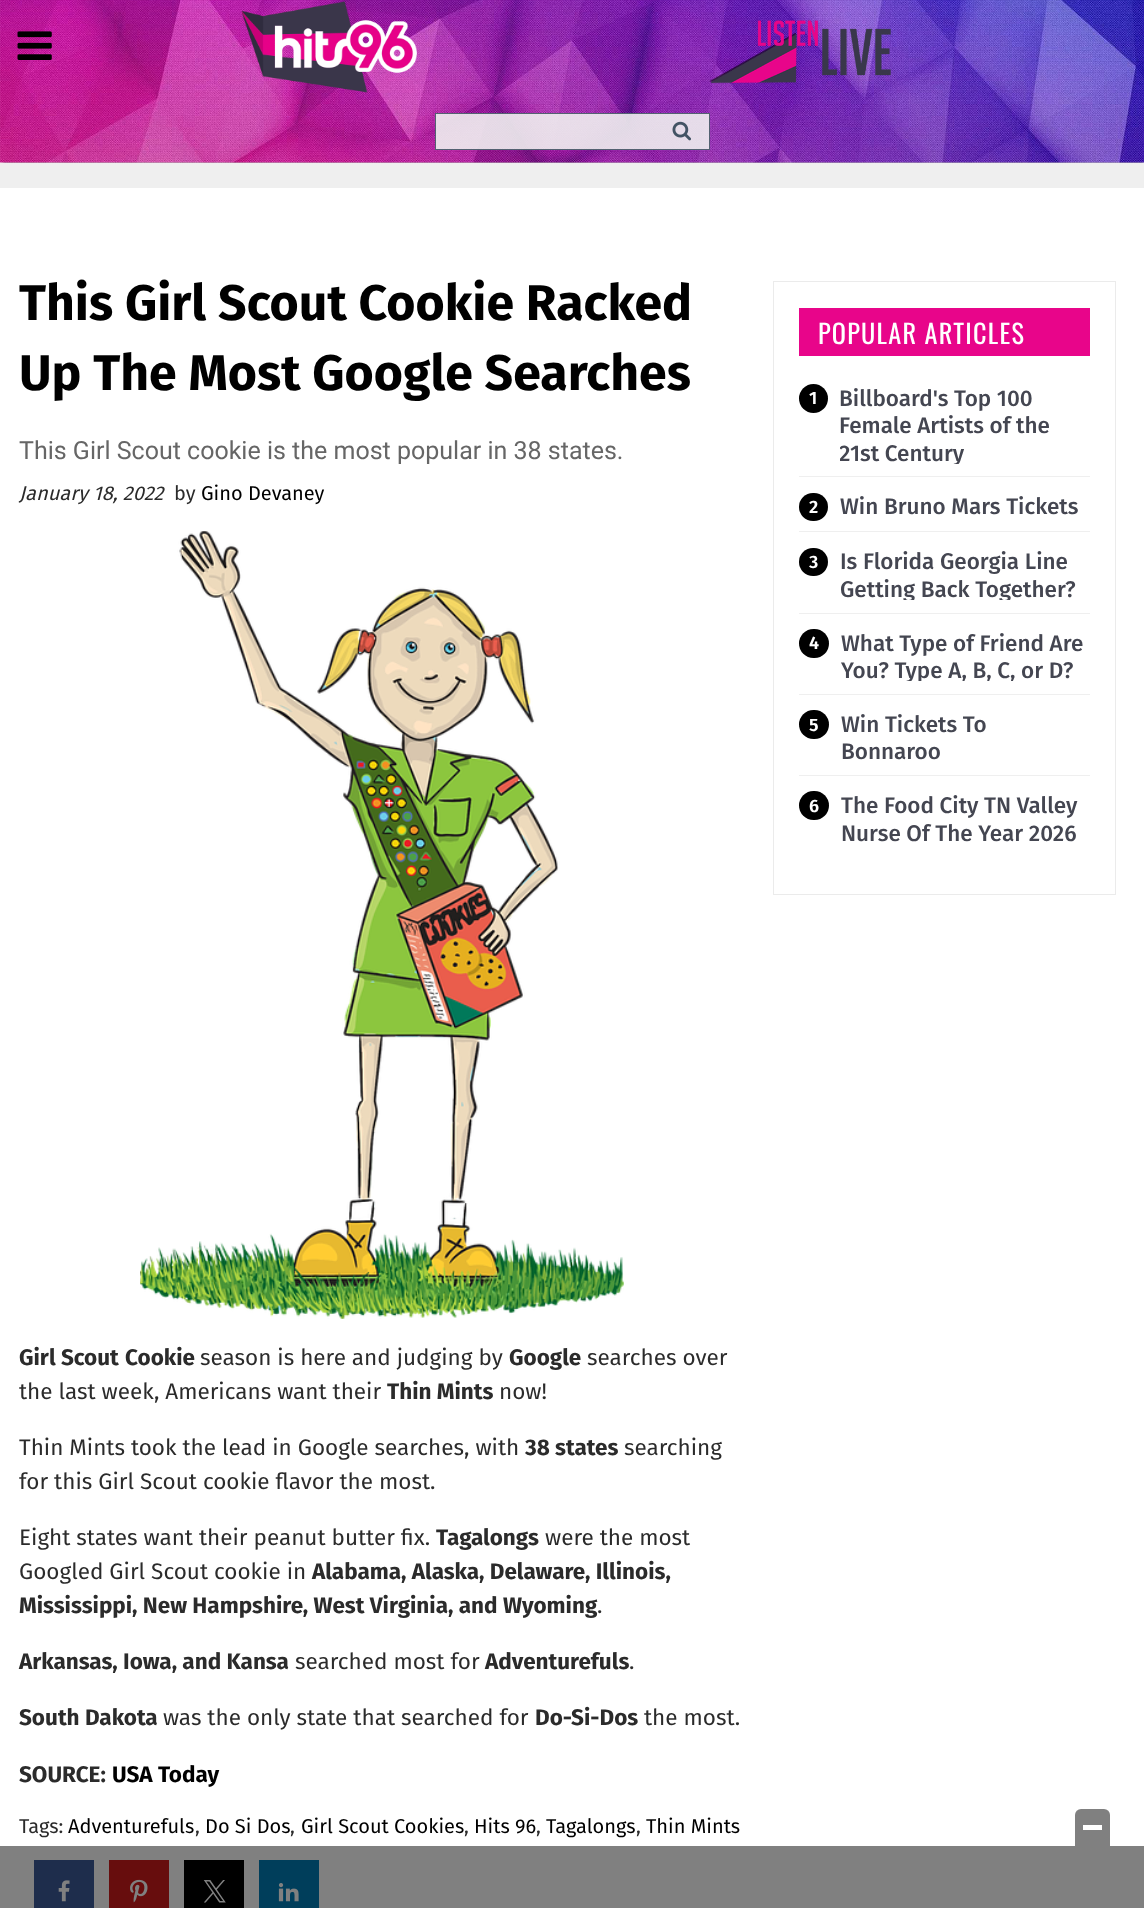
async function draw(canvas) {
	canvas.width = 1144;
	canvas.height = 1908;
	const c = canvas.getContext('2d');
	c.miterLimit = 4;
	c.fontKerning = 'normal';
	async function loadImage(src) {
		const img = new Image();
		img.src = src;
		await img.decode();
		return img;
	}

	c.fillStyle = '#fff';
	c.fillRect(0, 0, 1144, 1908);
	c.fillStyle = '#0000004d';
	c.filter = 'blur(1px)';
	c.beginPath();
	c.rect(3, 8, 1140, 157);
	c.fill();
	c.filter = 'none';
	c.drawImage(await loadImage('img1.png'), 0, 0, 1144, 163);
	c.drawImage(await loadImage('img2.png'), 17, 31, 35, 29);
	c.drawImage(await loadImage('img3.png'), 241, 1, 176, 92);
	c.drawImage(await loadImage('img4.png'), 709, 20, 182, 64);
	c.fillStyle = '#efefefe6';
	c.fillRect(435, 113, 275, 37);
	c.strokeStyle = '#435364e6';
	c.strokeRect(435.5, 113.5, 274, 36);
	c.drawImage(await loadImage('img5.png'), 672, 121, 19, 20);
	c.fillStyle = '#efefef';
	c.fillRect(0, 163, 1144, 25);
	c.fillStyle = '#808080';
	c.fillRect(0, 1846, 1144, 62);
	c.font = 'bold 50px Fira Sans';
	c.fillStyle = '#000';
	c.fillText('This Girl Scout Cookie Racked', 19, 320);
	c.fillText('Up The Most Google Searches', 19, 390);
	c.font = '25px Roboto';
	c.fillStyle = '#666';
	c.fillText('This Girl Scout cookie is the most popular in 38 states.', 19, 459);
	c.font = 'italic 20px Fira Sans';
	c.fillStyle = '#2b2b2b';
	c.fillText('January 18, 2022', 19, 500);
	c.font = '20px Fira Sans';
	c.fillText('by', 174, 500);
	c.fillStyle = '#000';
	c.fillText('Gino Devaney', 201, 500);
	c.drawImage(await loadImage('img6.png'), 140, 531, 484, 788);
	c.font = 'bold 22.5px Fira Sans';
	c.fillStyle = '#2b2b2b';
	c.fillText('Girl Scout', 19, 1365);
	c.fillText('Cookie', 125, 1365);
	c.font = '22.5px Fira Sans';
	c.fillText('season is here and judging by', 200, 1365);
	c.font = 'bold 22.5px Fira Sans';
	c.fillText('Google', 509, 1365);
	c.font = '22.5px Fira Sans';
	c.fillText('searches over', 587, 1365);
	c.fillText('the last week, Americans want their', 19, 1399);
	c.font = 'bold 22.5px Fira Sans';
	c.fillText('Thin Mints', 387, 1399);
	c.font = '22.5px Fira Sans';
	c.fillText('now!', 499, 1399);
	c.fillText('Thin Mints took the lead in Google searches, with', 19, 1455);
	c.font = 'bold 22.5px Fira Sans';
	c.fillText('38 states', 525, 1455);
	c.font = '22.5px Fira Sans';
	for (const [text, x, y] of [
		['searching', 624, 1455],
		['for this Girl Scout cookie flavor the most.', 19, 1489],
		['Eight states want their peanut butter fix.', 19, 1545],
	]) {
		c.fillText(text, x, y);
	}
	c.font = 'bold 22.5px Fira Sans';
	c.fillText('Tagalongs', 436, 1545);
	c.font = '22.5px Fira Sans';
	c.fillText('were the most', 545, 1545);
	c.fillText('Googled Girl Scout cookie in', 19, 1579);
	c.font = 'bold 22.5px Fira Sans';
	c.fillText('Alabama, Alaska, Delaware, Illinois,', 312, 1579);
	c.fillText('Mississippi, New Hampshire, West Virginia, and Wyoming', 19, 1613);
	c.font = '22.5px Fira Sans';
	c.fillText('.', 597, 1613);
	c.font = 'bold 22.5px Fira Sans';
	c.fillText('Arkansas, Iowa, and Kansa', 19, 1669);
	c.font = '22.5px Fira Sans';
	c.fillText('searched most for', 295, 1669);
	c.font = 'bold 22.5px Fira Sans';
	c.fillText('Adventurefuls', 485, 1669);
	c.font = '22.5px Fira Sans';
	c.fillText('.', 629, 1669);
	c.font = 'bold 22.5px Fira Sans';
	c.fillText('South Dakota', 19, 1725);
	c.font = '22.5px Fira Sans';
	c.fillText('was the only state that searched for', 163, 1725);
	c.font = 'bold 22.5px Fira Sans';
	c.fillText('Do-Si-Dos', 535, 1725);
	c.font = '22.5px Fira Sans';
	c.fillText('the most.', 644, 1725);
	c.font = 'bold 22.5px Fira Sans';
	c.fillText('SOURCE:', 19, 1782);
	c.fillStyle = '#000';
	c.fillText('USA Today', 112, 1782);
	c.font = '20px Fira Sans';
	c.fillStyle = '#2b2b2b';
	c.fillText('Tags:', 19, 1833);
	c.fillStyle = '#000';
	c.fillText('Adventurefuls', 68, 1833);
	c.fillStyle = '#2b2b2b';
	c.fillText(',', 195, 1833);
	c.fillStyle = '#000';
	c.fillText('Do Si Dos', 205, 1833);
	c.fillStyle = '#2b2b2b';
	c.fillText(',', 290, 1833);
	c.fillStyle = '#000';
	c.fillText('Girl Scout Cookies', 301, 1833);
	c.fillStyle = '#2b2b2b';
	c.fillText(',', 464, 1833);
	c.fillStyle = '#000';
	c.fillText('Hits 96', 474, 1833);
	c.fillStyle = '#2b2b2b';
	c.fillText(',', 536, 1833);
	c.fillStyle = '#000';
	c.fillText('Tagalongs', 546, 1833);
	c.fillStyle = '#2b2b2b';
	c.fillText(',', 636, 1833);
	c.fillStyle = '#000';
	c.fillText('Thin Mints', 646, 1833);
	c.fillStyle = '#1e2d4c';
	c.fillRect(34, 1860, 60, 48);
	c.drawImage(await loadImage('img7.png'), 58, 1880, 12, 22);
	c.fillStyle = '#670d0d';
	c.fillRect(109, 1860, 60, 48);
	c.drawImage(await loadImage('img8.png'), 130, 1879, 18, 24);
	c.fillStyle = '#000';
	c.fillRect(184, 1860, 60, 48);
	c.drawImage(await loadImage('img9.png'), 203, 1880, 23, 23);
	c.fillStyle = '#003e5b';
	c.fillRect(259, 1860, 60, 48);
	c.drawImage(await loadImage('img10.png'), 278, 1883, 21, 19);
	c.strokeStyle = '#ebebeb';
	c.strokeRect(773.5, 281.5, 342, 613);
	c.fillStyle = '#e8058a';
	c.fillRect(799, 308, 291, 48);
	c.letterSpacing = '1.25px';
	c.font = '26.25px Oswald';
	c.fillStyle = '#fff';
	c.fillText('POPULAR ARTICLES', 818, 344);
	c.fillStyle = '#efefef';
	c.fillRect(799, 476, 291, 1);
	c.fillStyle = '#000';
	c.beginPath();
	c.arc(813.5, 398.5, 14.5, 0, 2 * Math.PI);
	c.fill();
	c.letterSpacing = '0px';
	c.font = '600 18px Fira Sans';
	c.fillStyle = '#fff';
	c.fillText('1', 809, 404);
	c.font = '500 22.5px Fira Sans';
	c.fillStyle = '#444651';
	c.fillText('Billboard\'s Top 100', 839, 406);
	c.fillText('Female Artists of the', 839, 433);
	c.save();
	c.beginPath();
	c.rect(840, 381, 250, 83);
	c.clip();
	c.fillText('21st Century', 839, 461);
	c.restore();
	c.fillStyle = '#efefef';
	c.fillRect(799, 531, 291, 1);
	c.fillStyle = '#000';
	c.beginPath();
	c.roundRect(799, 493, 29, 28, 14);
	c.fill();
	c.font = '600 18px Fira Sans';
	c.fillStyle = '#fff';
	c.fillText('2', 809, 513);
	c.font = '500 22.5px Fira Sans';
	c.fillStyle = '#444651';
	c.fillText('Win Bruno Mars Tickets', 840, 514);
	c.fillStyle = '#efefef';
	c.fillRect(799, 613, 291, 1);
	c.fillStyle = '#000';
	c.beginPath();
	c.roundRect(799, 548, 29, 28, 14);
	c.fill();
	c.font = '600 18px Fira Sans';
	c.fillStyle = '#fff';
	c.fillText('3', 809, 568);
	c.font = '500 22.5px Fira Sans';
	c.fillStyle = '#444651';
	c.fillText('Is Florida Georgia Line', 840, 569);
	c.save();
	c.beginPath();
	c.rect(840, 545, 250, 55);
	c.clip();
	c.fillText('Getting Back Together?', 840, 597);
	c.restore();
	c.fillStyle = '#efefef';
	c.fillRect(799, 694, 291, 1);
	c.fillStyle = '#000';
	c.beginPath();
	c.roundRect(799, 629, 30, 29, 14.5);
	c.fill();
	c.font = '600 18px Fira Sans';
	c.fillStyle = '#fff';
	c.fillText('4', 809, 649);
	c.font = '500 22.5px Fira Sans';
	c.fillStyle = '#444651';
	c.fillText('What Type of Friend Are', 841, 651);
	c.save();
	c.beginPath();
	c.rect(841, 626, 249, 55);
	c.clip();
	c.fillText('You? Type A, B, C, or D?', 841, 678);
	c.restore();
	c.fillStyle = '#efefef';
	c.fillRect(799, 775, 291, 1);
	c.fillStyle = '#000';
	c.beginPath();
	c.roundRect(799, 710, 30, 29, 14.5);
	c.fill();
	c.font = '600 18px Fira Sans';
	c.fillStyle = '#fff';
	c.fillText('5', 809, 731);
	c.font = '500 22.5px Fira Sans';
	c.fillStyle = '#444651';
	c.fillText('Win Tickets To', 841, 732);
	c.fillText('Bonnaroo', 841, 759);
	c.fillStyle = '#000';
	c.beginPath();
	c.roundRect(799, 791, 30, 29, 14.5);
	c.fill();
	c.font = '600 18px Fira Sans';
	c.fillStyle = '#fff';
	c.fillText('6', 809, 812);
	c.font = '500 22.5px Fira Sans';
	c.fillStyle = '#444651';
	c.fillText('The Food City TN Valley', 841, 813);
	c.fillText('Nurse Of The Year 2026', 841, 841);
	c.fillStyle = '#808080';
	c.beginPath();
	c.roundRect(1075, 1809, 35, 37, [6, 6, 0, 0]);
	c.fill();
	c.fillStyle = '#fff';
	c.fillRect(1083, 1825, 19, 5);
}

draw(document.querySelector('canvas'));
